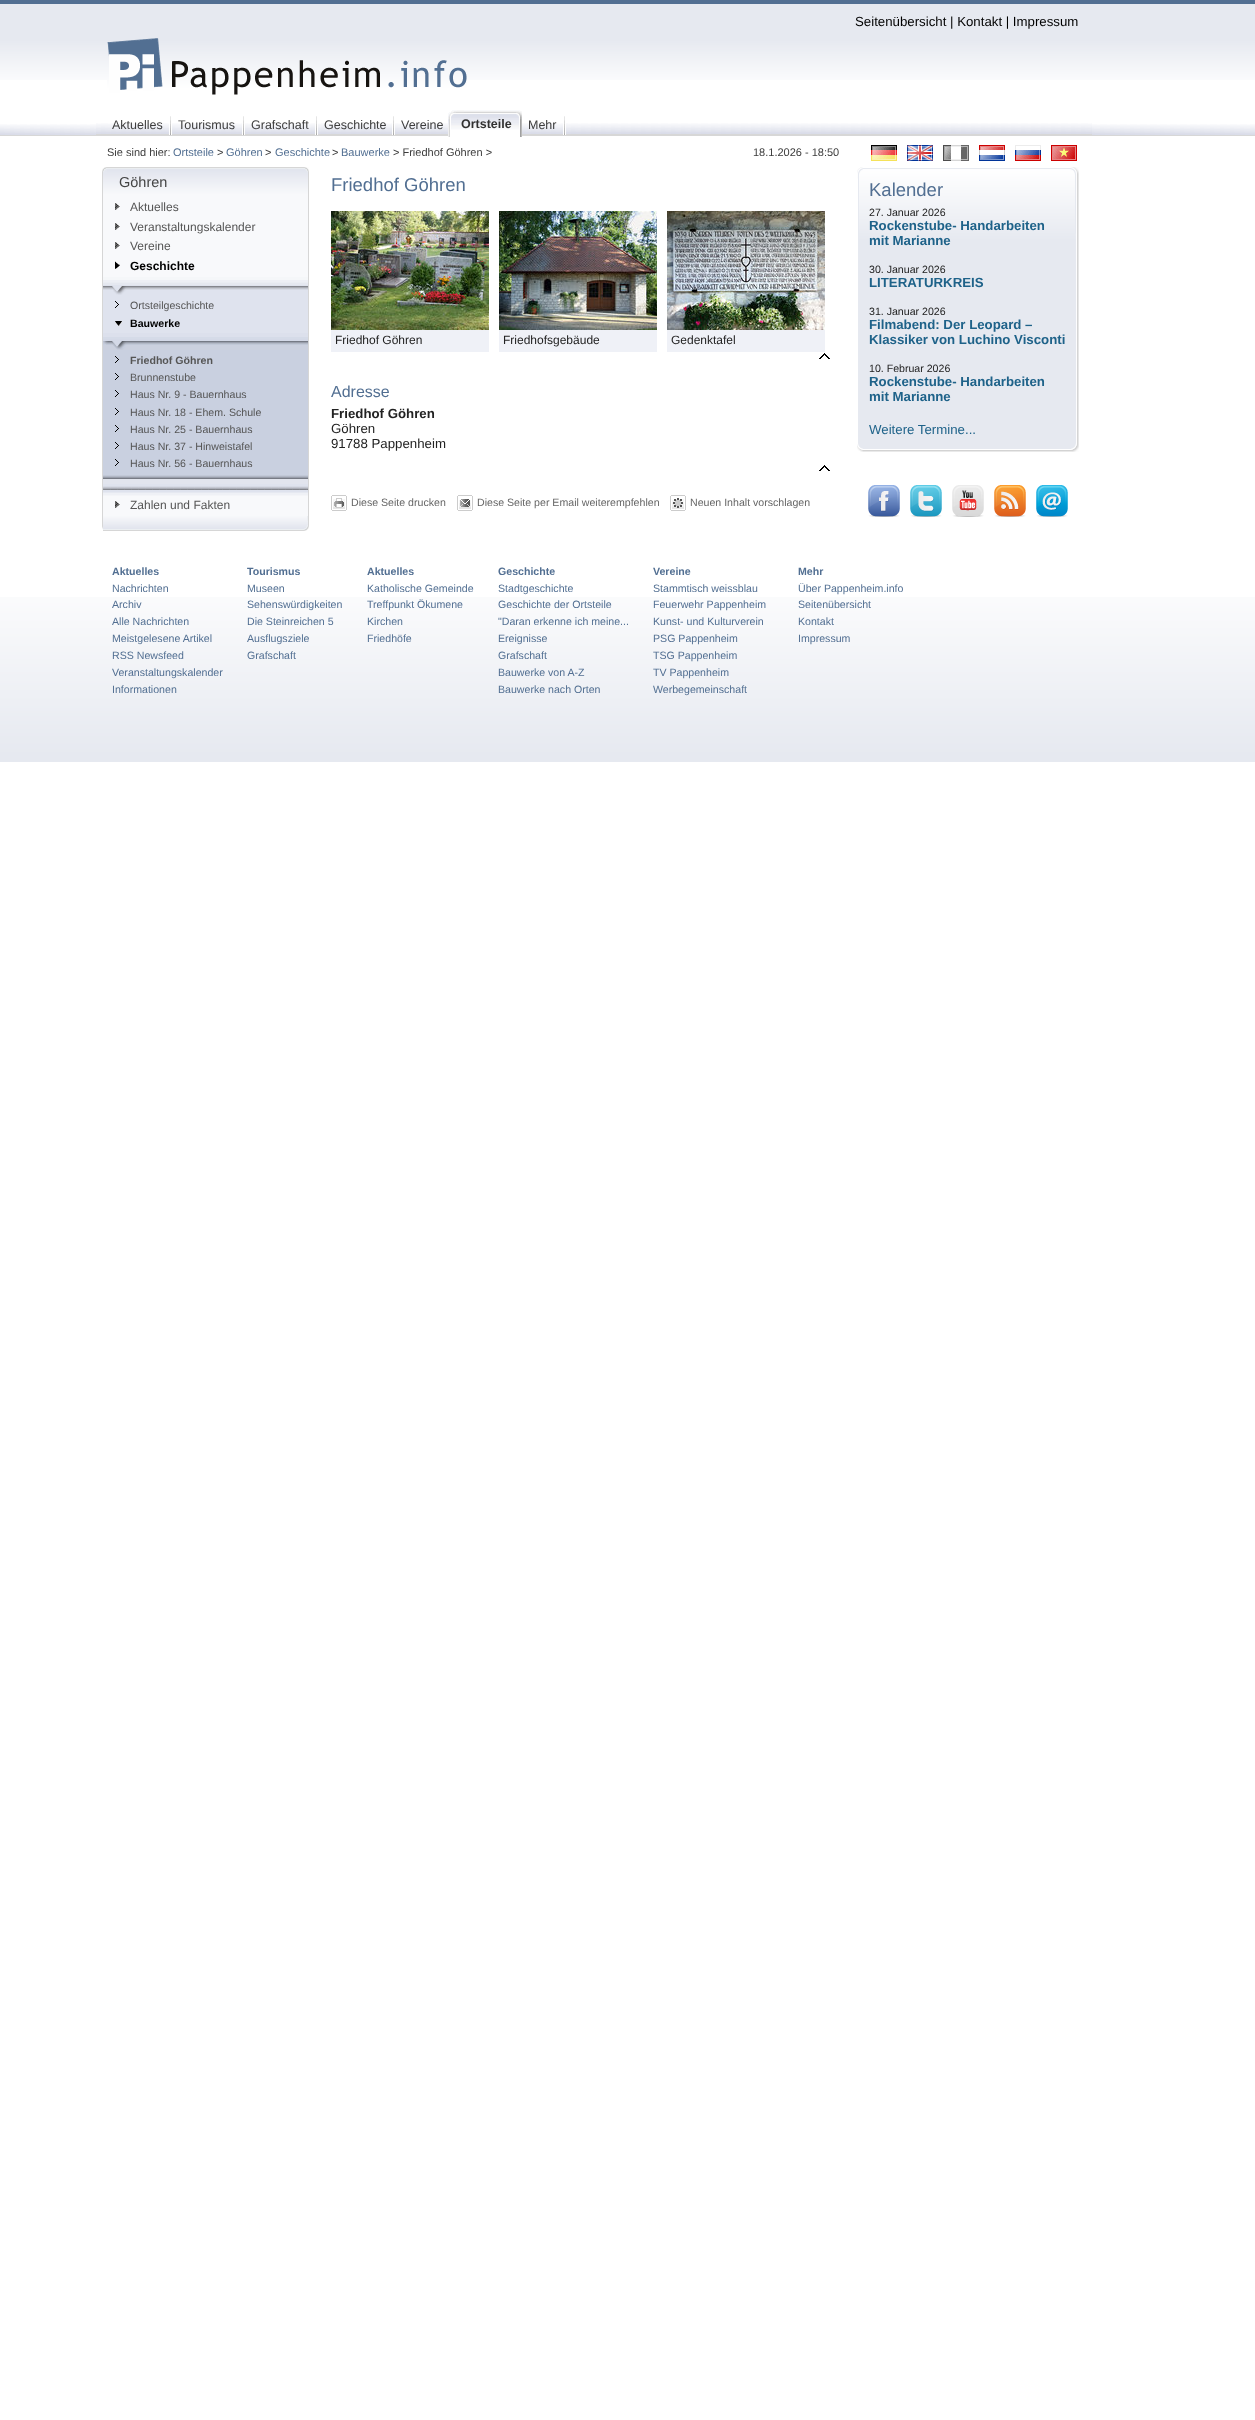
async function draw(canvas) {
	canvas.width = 1255;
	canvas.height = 2420;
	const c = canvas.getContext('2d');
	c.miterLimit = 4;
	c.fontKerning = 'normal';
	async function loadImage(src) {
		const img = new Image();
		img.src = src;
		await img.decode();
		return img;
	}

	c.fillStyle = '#fff';
	c.fillRect(0, 0, 1255, 2420);
	c.drawImage(await loadImage('img1.png'), 0, 0, 1255, 80);
	c.font = '13.25px Liberation Sans';
	c.fillStyle = '#000';
	c.fillText('Seitenübersicht | Kontakt | Impressum', 855, 26);
	c.drawImage(await loadImage('img2.png'), 107, 38, 360, 57);
	c.drawImage(await loadImage('img3.png'), 0, 124, 1255, 12);
	c.drawImage(await loadImage('img4.png'), 96, 123, 996, 12);
	c.drawImage(await loadImage('img5.png'), 169, 116, 3, 19);
	c.font = '12.5px Liberation Sans';
	c.fillStyle = '#3d3d3d';
	c.fillText('Aktuelles', 112, 129);
	c.drawImage(await loadImage('img5.png'), 242, 116, 3, 19);
	c.fillText('Tourismus', 178, 129);
	c.drawImage(await loadImage('img5.png'), 315, 116, 3, 19);
	c.fillText('Grafschaft', 251, 129);
	c.drawImage(await loadImage('img5.png'), 392, 116, 3, 19);
	c.fillText('Geschichte', 324, 129);
	c.fillText('Vereine', 401, 129);
	c.drawImage(await loadImage('img6.png'), 448, 110, 16, 27);
	c.drawImage(await loadImage('img7.png'), 464, 110, 58, 27);
	c.font = 'bold 12.5px Liberation Sans';
	c.fillStyle = '#313131';
	c.fillText('Ortsteile', 461, 128);
	c.drawImage(await loadImage('img5.png'), 563, 116, 3, 19);
	c.font = '12.5px Liberation Sans';
	c.fillStyle = '#3d3d3d';
	c.fillText('Mehr', 528, 129);
	c.font = '11px Liberation Sans';
	c.fillText('Sie sind hier:', 107, 156);
	c.fillStyle = '#526f92';
	c.fillText('Ortsteile', 173, 156);
	c.fillStyle = '#3d3d3d';
	c.fillText('>', 217, 156);
	c.fillStyle = '#526f92';
	c.fillText('Göhren', 226, 156);
	c.fillStyle = '#3d3d3d';
	c.fillText('>', 265, 156);
	c.fillStyle = '#526f92';
	c.fillText('Geschichte', 275, 156);
	c.fillStyle = '#3d3d3d';
	c.fillText('>', 332, 156);
	c.fillStyle = '#526f92';
	c.fillText('Bauwerke', 341, 156);
	c.fillStyle = '#3d3d3d';
	c.fillText('> Friedhof Göhren >', 393, 156);
	c.fillText('18.1.2026 - 18:50', 753, 156);
	c.drawImage(await loadImage('img8.png'), 871, 145, 26, 16);
	c.drawImage(await loadImage('img9.png'), 907, 145, 26, 16);
	c.drawImage(await loadImage('img10.png'), 943, 145, 26, 16);
	c.drawImage(await loadImage('img11.png'), 979, 145, 26, 16);
	c.drawImage(await loadImage('img12.png'), 1015, 145, 26, 16);
	c.drawImage(await loadImage('img13.png'), 1051, 145, 26, 16);
	c.drawImage(await loadImage('img14.png'), 102, 167, 5, 31);
	c.drawImage(await loadImage('img15.png'), 107, 167, 202, 31);
	c.font = '14.5px Liberation Sans';
	c.fillStyle = '#444';
	c.fillText('Göhren', 119, 187);
	c.fillStyle = '#d6d6d6';
	c.fillRect(102, 198, 1, 317);
	c.drawImage(await loadImage('img16.png'), 102, 515, 1, 16);
	c.drawImage(await loadImage('img17.png'), 103, 516, 206, 15);
	c.fillRect(308, 198, 1, 318);
	c.fillStyle = '#f8f9fb';
	c.fillRect(103, 198, 205, 79);
	c.drawImage(await loadImage('img18.png'), 115, 202, 5, 8);
	c.font = '12px Liberation Sans';
	c.fillStyle = '#555';
	c.fillText('Aktuelles', 130, 211);
	c.drawImage(await loadImage('img18.png'), 115, 222, 5, 8);
	c.fillText('Veranstaltungskalender', 130, 231);
	c.drawImage(await loadImage('img18.png'), 115, 241, 5, 8);
	c.fillText('Vereine', 130, 250);
	c.drawImage(await loadImage('img19.png'), 115, 261, 5, 8);
	c.font = 'bold 12px Liberation Sans';
	c.fillStyle = '#000';
	c.fillText('Geschichte', 130, 270);
	c.fillStyle = '#dfe3ee';
	c.fillRect(103, 295, 205, 37);
	c.drawImage(await loadImage('img20.png'), 103, 277, 205, 18);
	c.drawImage(await loadImage('img21.png'), 115, 301, 4, 7);
	c.font = '10.6px Liberation Sans';
	c.fillStyle = '#555';
	c.fillText('Ortsteilgeschichte', 130, 309);
	c.drawImage(await loadImage('img22.png'), 115, 321, 7, 5);
	c.font = 'bold 10.6px Liberation Sans';
	c.fillStyle = '#000';
	c.fillText('Bauwerke', 130, 327);
	c.fillStyle = '#c9d0e0';
	c.fillRect(103, 350, 205, 123);
	c.drawImage(await loadImage('img23.png'), 103, 332, 205, 18);
	c.drawImage(await loadImage('img24.png'), 115, 356, 4, 7);
	c.fillStyle = '#555';
	c.fillText('Friedhof Göhren', 130, 364);
	c.drawImage(await loadImage('img24.png'), 115, 373, 4, 7);
	c.font = '10.6px Liberation Sans';
	c.fillText('Brunnenstube', 130, 381);
	c.drawImage(await loadImage('img24.png'), 115, 390, 4, 7);
	c.fillText('Haus Nr. 9 - Bauernhaus', 130, 398);
	c.drawImage(await loadImage('img24.png'), 115, 408, 4, 7);
	c.fillText('Haus Nr. 18 - Ehem. Schule', 130, 416);
	c.drawImage(await loadImage('img24.png'), 115, 425, 4, 7);
	c.fillText('Haus Nr. 25 - Bauernhaus', 130, 433);
	c.drawImage(await loadImage('img24.png'), 115, 442, 4, 7);
	c.fillText('Haus Nr. 37 - Hinweistafel', 130, 450);
	c.drawImage(await loadImage('img24.png'), 115, 459, 4, 7);
	c.fillText('Haus Nr. 56 - Bauernhaus', 130, 467);
	c.drawImage(await loadImage('img25.png'), 103, 473, 205, 11);
	c.drawImage(await loadImage('img26.png'), 103, 484, 205, 12);
	c.fillStyle = '#f8f9fb';
	c.fillRect(103, 496, 205, 20);
	c.drawImage(await loadImage('img18.png'), 115, 500, 5, 8);
	c.font = '12px Liberation Sans';
	c.fillStyle = '#555';
	c.fillText('Zahlen und Fakten', 130, 509);
	c.font = '18.5px Liberation Sans';
	c.fillStyle = '#526f92';
	c.fillText('Friedhof Göhren', 331, 191);
	c.drawImage(await loadImage('img27.png'), 331, 211, 158, 119);
	c.fillStyle = '#eff1f7';
	c.fillRect(331, 330, 158, 22);
	c.font = '12px Liberation Sans';
	c.fillStyle = '#222';
	c.fillText('Friedhof Göhren', 335, 344);
	c.drawImage(await loadImage('img28.png'), 499, 211, 158, 119);
	c.fillStyle = '#eff1f7';
	c.fillRect(499, 330, 158, 22);
	c.fillStyle = '#222';
	c.fillText('Friedhofsgebäude', 503, 344);
	c.drawImage(await loadImage('img29.png'), 667, 211, 158, 119);
	c.fillStyle = '#eff1f7';
	c.fillRect(667, 330, 158, 22);
	c.fillStyle = '#222';
	c.fillText('Gedenktafel', 671, 344);
	c.drawImage(await loadImage('img30.png'), 819, 353, 11, 6);
	c.font = '16px Liberation Sans';
	c.fillStyle = '#526f92';
	c.fillText('Adresse', 331, 397);
	c.font = 'bold 13.25px Liberation Sans';
	c.fillStyle = '#222';
	c.fillText('Friedhof Göhren', 331, 418);
	c.font = '13.25px Liberation Sans';
	c.fillText('Göhren', 331, 433);
	c.fillText('91788 Pappenheim', 331, 448);
	c.drawImage(await loadImage('img30.png'), 819, 465, 11, 6);
	c.drawImage(await loadImage('img31.png'), 331, 495, 16, 16);
	c.font = '10.6px Liberation Sans';
	c.fillStyle = '#666';
	c.fillText('Diese Seite drucken', 351, 506);
	c.drawImage(await loadImage('img32.png'), 457, 495, 16, 16);
	c.fillText('Diese Seite per Email weiterempfehlen', 477, 506);
	c.drawImage(await loadImage('img33.png'), 670, 495, 16, 16);
	c.fillText('Neuen Inhalt vorschlagen', 690, 506);
	c.drawImage(await loadImage('img34.png'), 863, 167, 216, 270);
	c.drawImage(await loadImage('img35.png'), 857, 167, 6, 270);
	c.drawImage(await loadImage('img36.png'), 863, 437, 216, 15);
	c.drawImage(await loadImage('img37.png'), 857, 437, 6, 15);
	c.font = '18.5px Liberation Sans';
	c.fillStyle = '#526f92';
	c.fillText('Kalender', 869, 196);
	c.font = '10.6px Liberation Sans';
	c.fillStyle = '#222';
	c.fillText('27. Januar 2026', 869, 216);
	c.font = 'bold 13.25px Liberation Sans';
	c.fillStyle = '#1e6289';
	c.fillText('Rockenstube- Handarbeiten', 869, 230);
	c.fillText('mit Marianne', 869, 245);
	c.font = '10.6px Liberation Sans';
	c.fillStyle = '#222';
	c.fillText('30. Januar 2026', 869, 273);
	c.font = 'bold 13.25px Liberation Sans';
	c.fillStyle = '#1e6289';
	c.fillText('LITERATURKREIS', 869, 287);
	c.font = '10.6px Liberation Sans';
	c.fillStyle = '#222';
	c.fillText('31. Januar 2026', 869, 315);
	c.font = 'bold 13.25px Liberation Sans';
	c.fillStyle = '#1e6289';
	c.fillText('Filmabend: Der Leopard –', 869, 329);
	c.fillText('Klassiker von Luchino Visconti', 869, 344);
	c.font = '10.6px Liberation Sans';
	c.fillStyle = '#222';
	c.fillText('10. Februar 2026', 869, 372);
	c.font = 'bold 13.25px Liberation Sans';
	c.fillStyle = '#1e6289';
	c.fillText('Rockenstube- Handarbeiten', 869, 386);
	c.fillText('mit Marianne', 869, 401);
	c.font = '13.25px Liberation Sans';
	c.fillText('Weitere Termine...', 869, 434);
	c.drawImage(await loadImage('img38.png'), 868, 485, 32, 32);
	c.drawImage(await loadImage('img39.png'), 910, 485, 32, 32);
	c.drawImage(await loadImage('img40.png'), 952, 485, 32, 32);
	c.drawImage(await loadImage('img41.png'), 994, 485, 32, 32);
	c.drawImage(await loadImage('img42.png'), 1036, 485, 32, 32);
	c.drawImage(await loadImage('img43.png'), 0, 597, 1255, 165);
	c.font = 'bold 10.6px Liberation Sans';
	c.fillStyle = '#526f92';
	c.fillText('Aktuelles', 112, 575);
	c.font = '10.6px Liberation Sans';
	for (const [text, x, y] of [
		['Nachrichten', 112, 592],
		['Archiv', 112, 608],
		['Alle Nachrichten', 112, 625],
		['Meistgelesene Artikel', 112, 642],
		['RSS Newsfeed', 112, 659],
		['Veranstaltungskalender', 112, 676],
		['Informationen', 112, 693],
	]) {
		c.fillText(text, x, y);
	}
	c.font = 'bold 10.6px Liberation Sans';
	c.fillText('Tourismus', 247, 575);
	c.font = '10.6px Liberation Sans';
	for (const [text, x, y] of [
		['Museen', 247, 592],
		['Sehenswürdigkeiten', 247, 608],
		['Die Steinreichen 5', 247, 625],
		['Ausflugsziele', 247, 642],
		['Grafschaft', 247, 659],
	]) {
		c.fillText(text, x, y);
	}
	c.font = 'bold 10.6px Liberation Sans';
	c.fillText('Aktuelles', 367, 575);
	c.font = '10.6px Liberation Sans';
	for (const [text, x, y] of [
		['Katholische Gemeinde', 367, 592],
		['Treffpunkt Ökumene', 367, 608],
		['Kirchen', 367, 625],
		['Friedhöfe', 367, 642],
	]) {
		c.fillText(text, x, y);
	}
	c.font = 'bold 10.6px Liberation Sans';
	c.fillText('Geschichte', 498, 575);
	c.font = '10.6px Liberation Sans';
	for (const [text, x, y] of [
		['Stadtgeschichte', 498, 592],
		['Geschichte der Ortsteile', 498, 608],
		['"Daran erkenne ich meine...', 498, 625],
		['Ereignisse', 498, 642],
		['Grafschaft', 498, 659],
		['Bauwerke von A-Z', 498, 676],
		['Bauwerke nach Orten', 498, 693],
	]) {
		c.fillText(text, x, y);
	}
	c.font = 'bold 10.6px Liberation Sans';
	c.fillText('Vereine', 653, 575);
	c.font = '10.6px Liberation Sans';
	for (const [text, x, y] of [
		['Stammtisch weissblau', 653, 592],
		['Feuerwehr Pappenheim', 653, 608],
		['Kunst- und Kulturverein', 653, 625],
		['PSG Pappenheim', 653, 642],
		['TSG Pappenheim', 653, 659],
		['TV Pappenheim', 653, 676],
		['Werbegemeinschaft', 653, 693],
	]) {
		c.fillText(text, x, y);
	}
	c.font = 'bold 10.6px Liberation Sans';
	c.fillText('Mehr', 798, 575);
	c.font = '10.6px Liberation Sans';
	for (const [text, x, y] of [
		['Über Pappenheim.info', 798, 592],
		['Seitenübersicht', 798, 608],
		['Kontakt', 798, 625],
		['Impressum', 798, 642],
	]) {
		c.fillText(text, x, y);
	}
}

draw(document.querySelector('canvas'));
